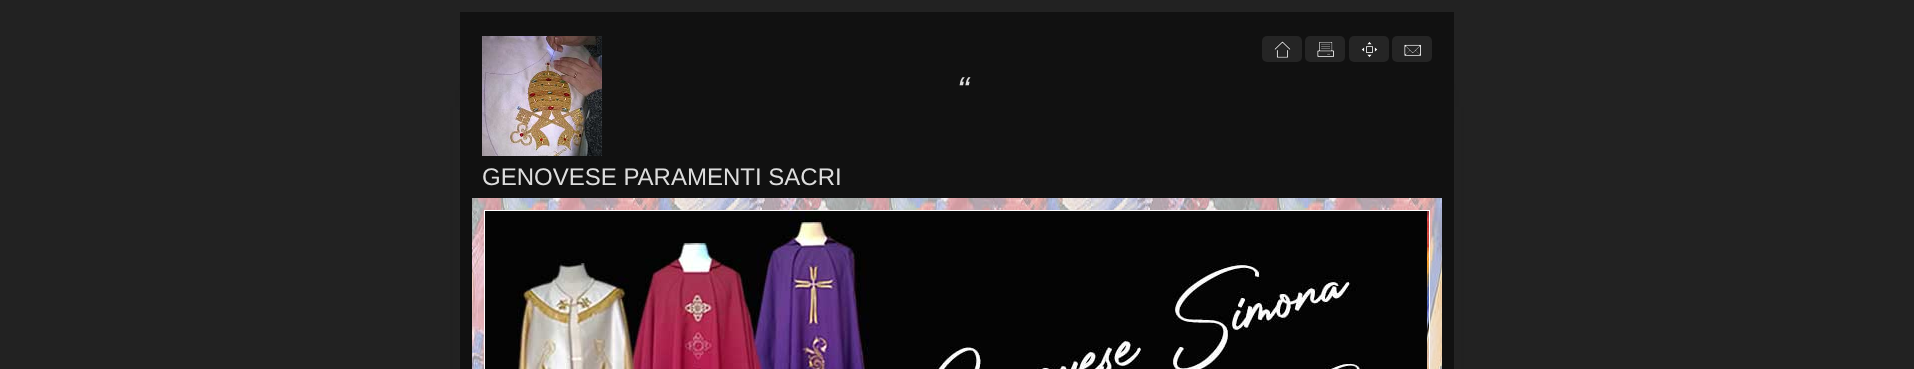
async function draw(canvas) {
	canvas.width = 1914;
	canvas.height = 369;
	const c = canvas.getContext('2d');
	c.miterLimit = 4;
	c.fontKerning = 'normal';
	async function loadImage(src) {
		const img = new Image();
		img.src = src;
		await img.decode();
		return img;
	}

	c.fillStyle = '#222';
	c.fillRect(0, 0, 1914, 369);
	c.fillStyle = '#777';
	c.filter = 'blur(25px)';
	c.beginPath();
	c.rect(510, 107, 894, 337);
	c.fill();
	c.filter = 'none';
	c.fillStyle = '#111';
	c.fillRect(460, 12, 994, 357);
	c.fillStyle = '#252525';
	c.beginPath();
	c.roundRect(1262, 36, 40, 26, 5);
	c.fill();
	c.beginPath();
	c.roundRect(1305, 36, 40, 26, 5);
	c.fill();
	c.beginPath();
	c.roundRect(1349, 36, 40, 26, 5);
	c.fill();
	c.beginPath();
	c.roundRect(1392, 36, 40, 26, 5);
	c.fill();
	c.drawImage(await loadImage('img1.png'), 1274, 41, 17, 17);
	c.drawImage(await loadImage('img2.png'), 1317, 42, 17, 15);
	c.drawImage(await loadImage('img3.png'), 1361, 42, 17, 15);
	c.drawImage(await loadImage('img4.png'), 1404, 44, 17, 12);
	c.font = 'italic 36px Liberation Sans';
	c.fillStyle = '#ddd';
	c.fillText('“', 957, 102);
	c.drawImage(await loadImage('img5.png'), 482, 36, 120, 120);
	c.font = '24px Liberation Sans';
	c.fillText('GENOVESE PARAMENTI SACRI', 482, 185);
	c.drawImage(await loadImage('img6.png'), 472, 198, 970, 171);
	c.strokeStyle = '#f5f5f599';
	c.lineWidth = 12;
	c.strokeRect(478, 204, 958, 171);
	c.strokeStyle = '#fff';
	c.lineWidth = 1;
	c.strokeRect(484.5, 210.5, 945, 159);
	c.drawImage(await loadImage('img7.png'), 485, 211, 942, 158);
}

draw(document.querySelector('canvas'));
